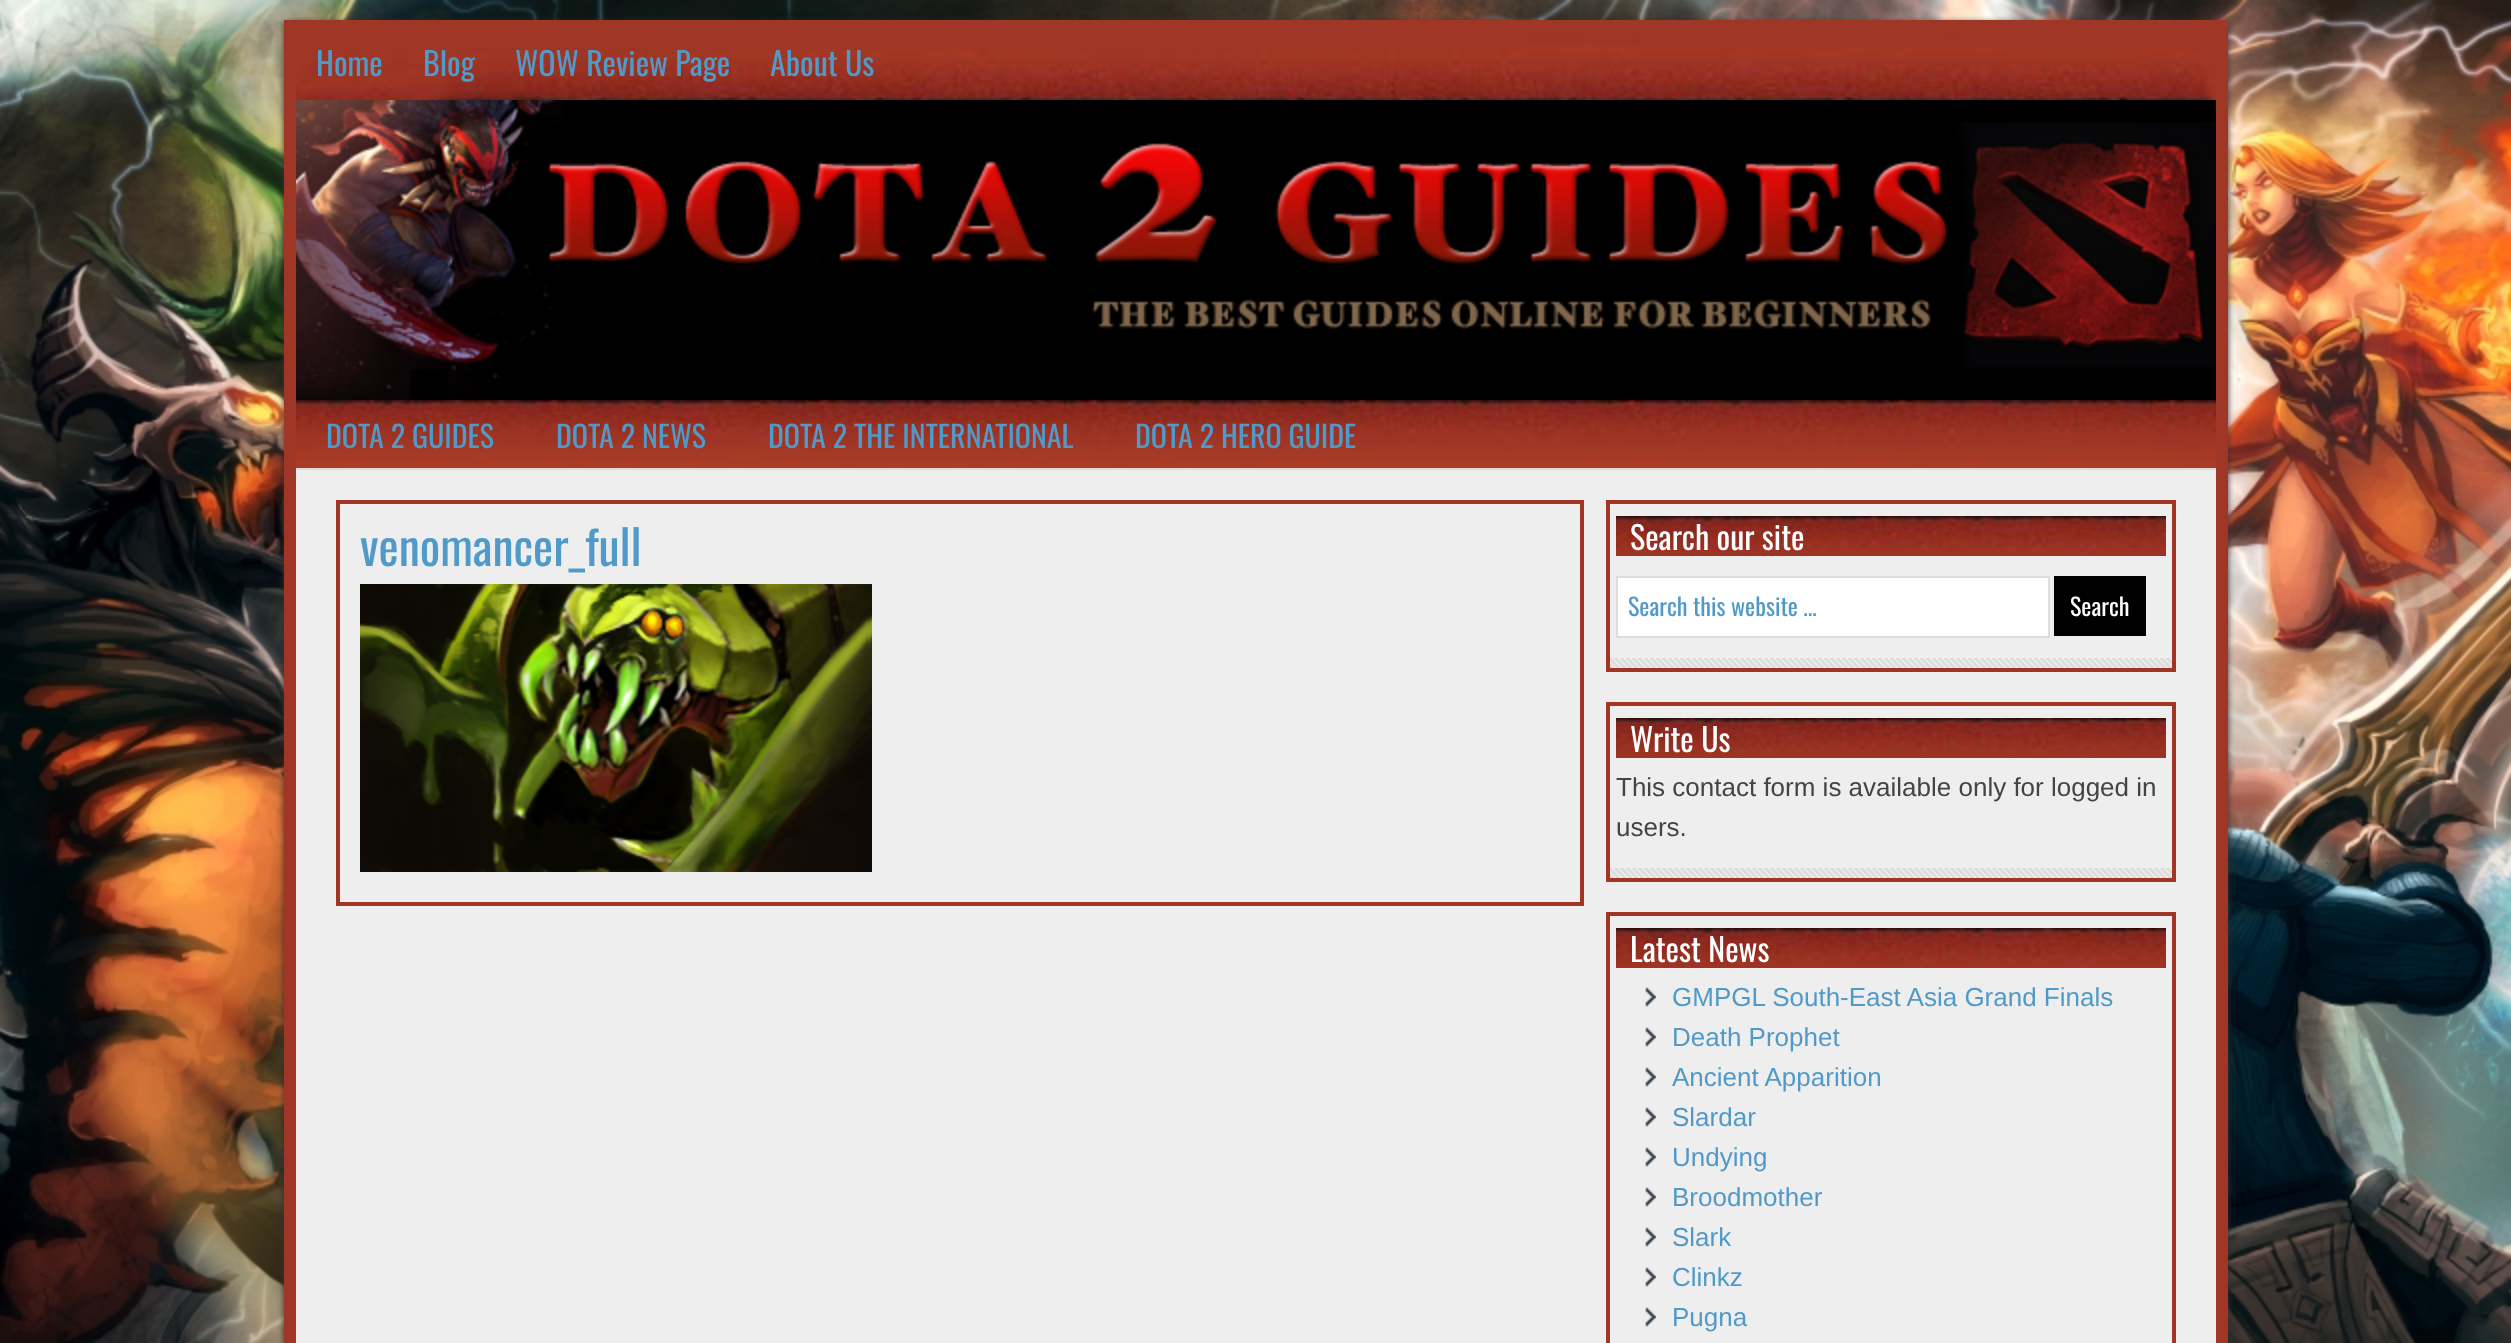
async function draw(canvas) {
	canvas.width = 2511;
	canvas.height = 1343;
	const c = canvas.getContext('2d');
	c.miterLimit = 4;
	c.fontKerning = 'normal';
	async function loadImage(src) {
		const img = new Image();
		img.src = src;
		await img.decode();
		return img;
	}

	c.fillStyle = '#fff';
	c.fillRect(0, 0, 2511, 1343);
	c.drawImage(await loadImage('img1.png'), 0, 0, 2511, 1343);
	c.fillStyle = '#333';
	c.filter = 'blur(3px)';
	c.beginPath();
	c.rect(284, 22, 1944, 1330);
	c.fill();
	c.filter = 'none';
	c.fillStyle = '#eee';
	c.fillRect(296, 470, 1920, 873);
	c.strokeStyle = '#a03626';
	c.lineWidth = 12;
	c.strokeRect(290, 26, 1932, 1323);
	c.drawImage(await loadImage('img2.png'), 296, 32, 1920, 68);
	c.font = '32px Oswald';
	c.fillStyle = '#509ac9';
	for (const [text, x, y] of [
		['Home', 316, 76],
		['Blog', 423, 76],
		['WOW Review Page', 515, 76],
		['About Us', 770, 76],
	]) {
		c.fillText(text, x, y);
	}
	c.drawImage(await loadImage('img3.png'), 296, 100, 1920, 300);
	c.drawImage(await loadImage('img4.png'), 296, 400, 1920, 68);
	c.fillStyle = '#ddd';
	c.fillRect(296, 468, 1920, 2);
	c.font = '30px Oswald';
	c.fillStyle = '#509ac9';
	for (const [text, x, y] of [
		['DOTA 2 GUIDES', 326, 448],
		['DOTA 2 NEWS', 556, 448],
		['DOTA 2 THE INTERNATIONAL', 768, 448],
		['DOTA 2 HERO GUIDE', 1135, 448],
	]) {
		c.fillText(text, x, y);
	}
	c.strokeStyle = '#a13624';
	c.lineWidth = 4;
	c.strokeRect(338, 502, 1244, 402);
	c.font = '48px Oswald';
	c.fillText('venomancer_full', 360, 566);
	c.drawImage(await loadImage('img5.png'), 360, 584, 512, 288);
	c.drawImage(await loadImage('img6.png'), 1610, 658, 562, 10);
	c.strokeRect(1608, 502, 566, 168);
	c.drawImage(await loadImage('img7.png'), 1616, 516, 550, 40);
	c.font = '32px Oswald';
	c.fillStyle = '#fff';
	c.fillText('Search our site', 1630, 550);
	c.beginPath();
	c.rect(1617, 577, 432, 60);
	c.fill();
	c.strokeStyle = '#ddd';
	c.lineWidth = 2;
	c.stroke();
	c.font = '24px Oswald';
	c.fillStyle = '#509ac9';
	c.fillText('Search this website …', 1628, 616);
	c.fillStyle = '#000';
	c.fillRect(2054, 576, 92, 60);
	c.fillStyle = '#fff';
	c.fillText('Search', 2070, 616);
	c.drawImage(await loadImage('img6.png'), 1610, 868, 562, 10);
	c.strokeStyle = '#a13624';
	c.lineWidth = 4;
	c.strokeRect(1608, 704, 566, 176);
	c.drawImage(await loadImage('img7.png'), 1616, 718, 550, 40);
	c.font = '32px Oswald';
	c.fillText('Write Us', 1630, 752);
	c.font = '26px Liberation Sans';
	c.fillStyle = '#444';
	c.fillText('This contact form is available only for logged in', 1616, 796);
	c.fillText('users.', 1616, 836);
	c.strokeRect(1608, 914, 566, 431);
	c.drawImage(await loadImage('img7.png'), 1616, 928, 550, 40);
	c.font = '32px Oswald';
	c.fillStyle = '#fff';
	c.fillText('Latest News', 1630, 962);
	c.drawImage(await loadImage('img8.png'), 1645, 987, 11, 20);
	c.font = '26px Liberation Sans';
	c.fillStyle = '#509ac9';
	c.fillText('GMPGL South-East Asia Grand Finals', 1672, 1006);
	c.drawImage(await loadImage('img8.png'), 1645, 1027, 11, 20);
	c.fillText('Death Prophet', 1672, 1046);
	c.drawImage(await loadImage('img8.png'), 1645, 1067, 11, 20);
	c.fillText('Ancient Apparition', 1672, 1086);
	c.drawImage(await loadImage('img8.png'), 1645, 1107, 11, 20);
	c.fillText('Slardar', 1672, 1126);
	c.drawImage(await loadImage('img8.png'), 1645, 1147, 11, 20);
	c.fillText('Undying', 1672, 1166);
	c.drawImage(await loadImage('img8.png'), 1645, 1187, 11, 20);
	c.fillText('Broodmother', 1672, 1206);
	c.drawImage(await loadImage('img8.png'), 1645, 1227, 11, 20);
	c.fillText('Slark', 1672, 1246);
	c.drawImage(await loadImage('img8.png'), 1645, 1267, 11, 20);
	c.fillText('Clinkz', 1672, 1286);
	c.drawImage(await loadImage('img8.png'), 1645, 1307, 11, 20);
	c.fillText('Pugna', 1672, 1326);
}

draw(document.querySelector('canvas'));
